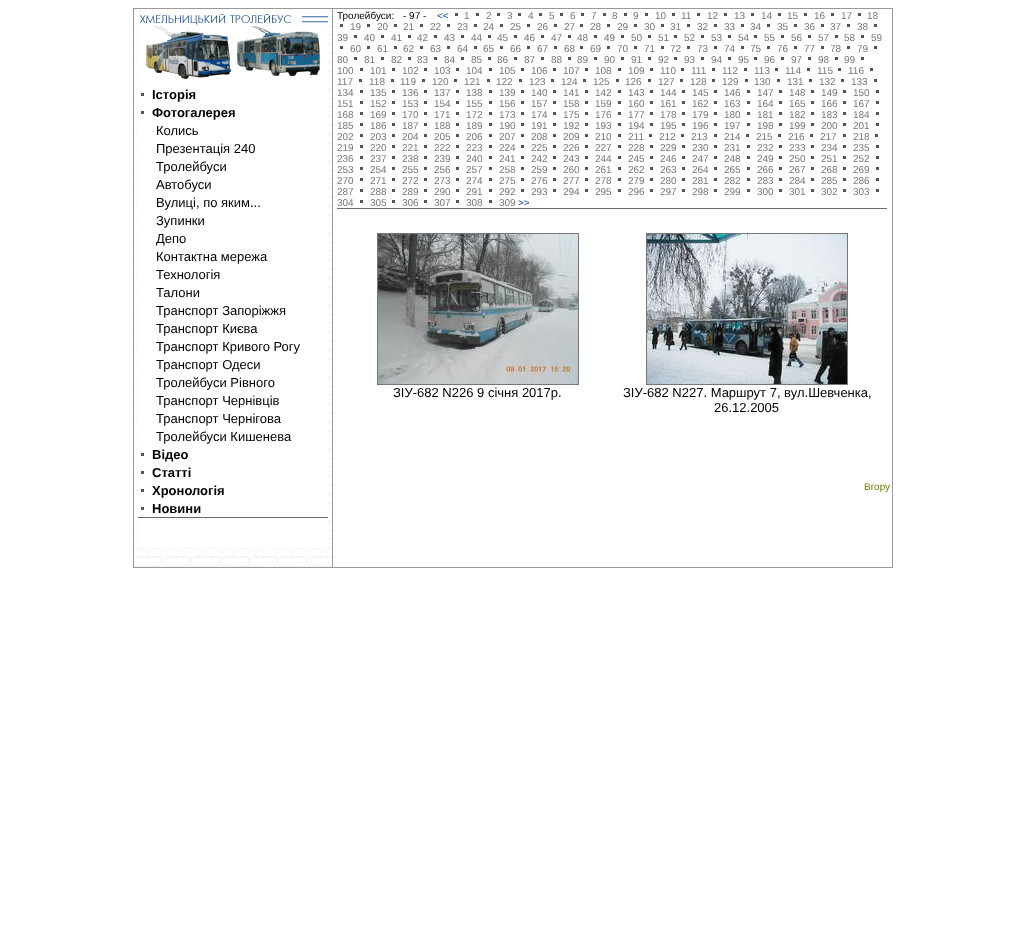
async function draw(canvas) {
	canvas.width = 1025;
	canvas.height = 936;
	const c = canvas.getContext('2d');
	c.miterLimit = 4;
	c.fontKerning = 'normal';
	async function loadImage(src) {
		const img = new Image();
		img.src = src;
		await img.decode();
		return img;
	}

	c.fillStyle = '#fff';
	c.fillRect(0, 0, 1025, 936);
	c.fillStyle = '#999';
	c.fillRect(133, 8, 760, 560);
	c.drawImage(await loadImage('img1.png'), 134, 9, 198, 558);
	c.fillStyle = '#fff';
	c.fillRect(138, 10, 190, 538);
	c.drawImage(await loadImage('img2.png'), 140, 14, 188, 65);
	c.font = 'bold 13px Liberation Sans';
	c.fillStyle = '#000';
	c.fillText('Історія', 152, 99);
	c.fillStyle = '#545454';
	c.fillRect(141, 93, 3, 3);
	c.fillStyle = '#000';
	c.fillText('Фотогалерея', 152, 117);
	c.fillStyle = '#545454';
	c.fillRect(141, 111, 3, 3);
	c.font = '13px Liberation Sans';
	c.fillStyle = '#000';
	for (const [text, x, y] of [
		['Колись', 156, 135],
		['Презентація 240', 156, 153],
		['Тролейбуси', 156, 171],
		['Автобуси', 156, 189],
		['Вулиці, по яким...', 156, 207],
		['Зупинки', 156, 225],
		['Депо', 156, 243],
		['Контактна мережа', 156, 261],
		['Технологія', 156, 279],
		['Талони', 156, 297],
		['Транспорт Запоріжжя', 156, 315],
		['Транспорт Києва', 156, 333],
		['Транспорт Кривого Рогу', 156, 351],
		['Транспорт Одеси', 156, 369],
		['Тролейбуси Рівного', 156, 387],
		['Транспорт Чернівців', 156, 405],
		['Транспорт Чернігова', 156, 423],
		['Тролейбуси Кишенева', 156, 441],
	]) {
		c.fillText(text, x, y);
	}
	c.font = 'bold 13px Liberation Sans';
	c.fillText('Відео', 152, 459);
	c.fillStyle = '#545454';
	c.fillRect(141, 453, 3, 3);
	c.fillStyle = '#000';
	c.fillText('Статті', 152, 477);
	c.fillStyle = '#545454';
	c.fillRect(141, 471, 3, 3);
	c.fillStyle = '#000';
	c.fillText('Хронологія', 152, 495);
	c.fillStyle = '#545454';
	c.fillRect(141, 489, 3, 3);
	c.fillStyle = '#000';
	c.fillText('Новини', 152, 513);
	for (const [x, y, w, h, color] of [
		[141, 507, 3, 3, '#545454'],
		[138, 517, 190, 1, '#6b6b6b'],
		[333, 9, 559, 558, '#fff'],
	]) {
		c.fillStyle = color;
		c.fillRect(x, y, w, h);
	}
	c.font = '10px Liberation Sans';
	c.fillStyle = '#000';
	c.fillText('Тролейбуси:', 337, 19);
	c.fillText('- 97 -', 403, 19);
	c.fillStyle = '#0645ad';
	c.fillText('<<', 437, 19);
	c.fillStyle = '#545454';
	c.fillRect(455, 13, 3, 3);
	c.fillStyle = '#777';
	c.fillText('1', 464, 19);
	c.fillStyle = '#545454';
	c.fillRect(476, 13, 3, 3);
	c.fillStyle = '#777';
	c.fillText('2', 486, 19);
	c.fillStyle = '#545454';
	c.fillRect(497, 13, 3, 3);
	c.fillStyle = '#777';
	c.fillText('3', 507, 19);
	c.fillStyle = '#545454';
	c.fillRect(518, 13, 3, 3);
	c.fillStyle = '#777';
	c.fillText('4', 528, 19);
	c.fillStyle = '#545454';
	c.fillRect(539, 13, 3, 3);
	c.fillStyle = '#777';
	c.fillText('5', 549, 19);
	c.fillStyle = '#545454';
	c.fillRect(560, 13, 3, 3);
	c.fillStyle = '#777';
	c.fillText('6', 570, 19);
	c.fillStyle = '#545454';
	c.fillRect(581, 13, 3, 3);
	c.fillStyle = '#777';
	c.fillText('7', 591, 19);
	c.fillStyle = '#545454';
	c.fillRect(603, 13, 3, 3);
	c.fillStyle = '#777';
	c.fillText('8', 612, 19);
	c.fillStyle = '#545454';
	c.fillRect(624, 13, 3, 3);
	c.fillStyle = '#777';
	c.fillText('9', 633, 19);
	c.fillStyle = '#545454';
	c.fillRect(645, 13, 3, 3);
	c.fillStyle = '#777';
	c.fillText('10', 655, 19);
	c.fillStyle = '#545454';
	c.fillRect(672, 13, 3, 3);
	c.fillStyle = '#777';
	c.fillText('11', 681, 19);
	c.fillStyle = '#545454';
	c.fillRect(697, 13, 3, 3);
	c.fillStyle = '#777';
	c.fillText('12', 707, 19);
	c.fillStyle = '#545454';
	c.fillRect(724, 13, 3, 3);
	c.fillStyle = '#777';
	c.fillText('13', 734, 19);
	c.fillStyle = '#545454';
	c.fillRect(751, 13, 3, 3);
	c.fillStyle = '#777';
	c.fillText('14', 761, 19);
	c.fillStyle = '#545454';
	c.fillRect(778, 13, 3, 3);
	c.fillStyle = '#777';
	c.fillText('15', 787, 19);
	c.fillStyle = '#545454';
	c.fillRect(804, 13, 3, 3);
	c.fillStyle = '#777';
	c.fillText('16', 814, 19);
	c.fillStyle = '#545454';
	c.fillRect(831, 13, 3, 3);
	c.fillStyle = '#777';
	c.fillText('17', 841, 19);
	c.fillStyle = '#545454';
	c.fillRect(858, 13, 3, 3);
	c.fillStyle = '#777';
	c.fillText('18', 867, 19);
	c.fillText('19', 350, 30);
	c.fillStyle = '#545454';
	c.fillRect(340, 24, 3, 3);
	c.fillRect(367, 24, 3, 3);
	c.fillStyle = '#777';
	c.fillText('20', 377, 30);
	c.fillText('21', 403, 30);
	c.fillStyle = '#545454';
	c.fillRect(394, 24, 3, 3);
	c.fillRect(420, 24, 3, 3);
	c.fillStyle = '#777';
	c.fillText('22', 430, 30);
	c.fillStyle = '#545454';
	c.fillRect(447, 24, 3, 3);
	c.fillStyle = '#777';
	c.fillText('23', 457, 30);
	c.fillText('24', 483, 30);
	c.fillStyle = '#545454';
	c.fillRect(474, 24, 3, 3);
	c.fillRect(500, 24, 3, 3);
	c.fillStyle = '#777';
	c.fillText('25', 510, 30);
	c.fillStyle = '#545454';
	c.fillRect(527, 24, 3, 3);
	c.fillStyle = '#777';
	c.fillText('26', 537, 30);
	c.fillStyle = '#545454';
	c.fillRect(554, 24, 3, 3);
	c.fillStyle = '#777';
	c.fillText('27', 564, 30);
	c.fillStyle = '#545454';
	c.fillRect(580, 24, 3, 3);
	c.fillStyle = '#777';
	c.fillText('28', 590, 30);
	c.fillStyle = '#545454';
	c.fillRect(607, 24, 3, 3);
	c.fillStyle = '#777';
	c.fillText('29', 617, 30);
	c.fillStyle = '#545454';
	c.fillRect(634, 24, 3, 3);
	c.fillStyle = '#777';
	c.fillText('30', 644, 30);
	c.fillStyle = '#545454';
	c.fillRect(661, 24, 3, 3);
	c.fillStyle = '#777';
	c.fillText('31', 670, 30);
	c.fillStyle = '#545454';
	c.fillRect(687, 24, 3, 3);
	c.fillStyle = '#777';
	c.fillText('32', 697, 30);
	c.fillStyle = '#545454';
	c.fillRect(714, 24, 3, 3);
	c.fillStyle = '#777';
	c.fillText('33', 724, 30);
	c.fillStyle = '#545454';
	c.fillRect(741, 24, 3, 3);
	c.fillStyle = '#777';
	c.fillText('34', 750, 30);
	c.fillStyle = '#545454';
	c.fillRect(767, 24, 3, 3);
	c.fillStyle = '#777';
	c.fillText('35', 777, 30);
	c.fillStyle = '#545454';
	c.fillRect(794, 24, 3, 3);
	c.fillStyle = '#777';
	c.fillText('36', 804, 30);
	c.fillStyle = '#545454';
	c.fillRect(821, 24, 3, 3);
	c.fillStyle = '#777';
	c.fillText('37', 830, 30);
	c.fillStyle = '#545454';
	c.fillRect(847, 24, 3, 3);
	c.fillStyle = '#777';
	c.fillText('38', 857, 30);
	c.fillStyle = '#545454';
	c.fillRect(874, 24, 3, 3);
	c.fillStyle = '#777';
	c.fillText('39', 337, 41);
	c.fillStyle = '#545454';
	c.fillRect(354, 35, 3, 3);
	c.fillStyle = '#777';
	c.fillText('40', 364, 41);
	c.fillText('41', 391, 41);
	c.fillStyle = '#545454';
	c.fillRect(381, 35, 3, 3);
	c.fillRect(408, 35, 3, 3);
	c.fillStyle = '#777';
	c.fillText('42', 417, 41);
	c.fillStyle = '#545454';
	c.fillRect(434, 35, 3, 3);
	c.fillStyle = '#777';
	c.fillText('43', 444, 41);
	c.fillText('44', 471, 41);
	c.fillStyle = '#545454';
	c.fillRect(461, 35, 3, 3);
	c.fillRect(488, 35, 3, 3);
	c.fillStyle = '#777';
	c.fillText('45', 497, 41);
	c.fillStyle = '#545454';
	c.fillRect(514, 35, 3, 3);
	c.fillStyle = '#777';
	c.fillText('46', 524, 41);
	c.fillText('47', 551, 41);
	c.fillStyle = '#545454';
	c.fillRect(541, 35, 3, 3);
	c.fillRect(568, 35, 3, 3);
	c.fillStyle = '#777';
	c.fillText('48', 577, 41);
	c.fillStyle = '#545454';
	c.fillRect(594, 35, 3, 3);
	c.fillStyle = '#777';
	c.fillText('49', 604, 41);
	c.fillStyle = '#545454';
	c.fillRect(621, 35, 3, 3);
	c.fillStyle = '#777';
	c.fillText('50', 631, 41);
	c.fillStyle = '#545454';
	c.fillRect(648, 35, 3, 3);
	c.fillStyle = '#777';
	c.fillText('51', 658, 41);
	c.fillStyle = '#545454';
	c.fillRect(674, 35, 3, 3);
	c.fillStyle = '#777';
	c.fillText('52', 684, 41);
	c.fillStyle = '#545454';
	c.fillRect(701, 35, 3, 3);
	c.fillStyle = '#777';
	c.fillText('53', 711, 41);
	c.fillStyle = '#545454';
	c.fillRect(728, 35, 3, 3);
	c.fillStyle = '#777';
	c.fillText('54', 738, 41);
	c.fillStyle = '#545454';
	c.fillRect(754, 35, 3, 3);
	c.fillStyle = '#777';
	c.fillText('55', 764, 41);
	c.fillStyle = '#545454';
	c.fillRect(781, 35, 3, 3);
	c.fillStyle = '#777';
	c.fillText('56', 791, 41);
	c.fillStyle = '#545454';
	c.fillRect(808, 35, 3, 3);
	c.fillStyle = '#777';
	c.fillText('57', 818, 41);
	c.fillStyle = '#545454';
	c.fillRect(835, 35, 3, 3);
	c.fillStyle = '#777';
	c.fillText('58', 844, 41);
	c.fillStyle = '#545454';
	c.fillRect(861, 35, 3, 3);
	c.fillStyle = '#777';
	c.fillText('59', 871, 41);
	c.fillText('60', 350, 52);
	c.fillStyle = '#545454';
	c.fillRect(340, 46, 3, 3);
	c.fillRect(367, 46, 3, 3);
	c.fillStyle = '#777';
	c.fillText('61', 377, 52);
	c.fillStyle = '#545454';
	c.fillRect(394, 46, 3, 3);
	c.fillStyle = '#777';
	c.fillText('62', 403, 52);
	c.fillStyle = '#545454';
	c.fillRect(420, 46, 3, 3);
	c.fillStyle = '#777';
	c.fillText('63', 430, 52);
	c.fillStyle = '#545454';
	c.fillRect(447, 46, 3, 3);
	c.fillStyle = '#777';
	c.fillText('64', 457, 52);
	c.fillStyle = '#545454';
	c.fillRect(474, 46, 3, 3);
	c.fillStyle = '#777';
	c.fillText('65', 483, 52);
	c.fillStyle = '#545454';
	c.fillRect(500, 46, 3, 3);
	c.fillStyle = '#777';
	c.fillText('66', 510, 52);
	c.fillStyle = '#545454';
	c.fillRect(527, 46, 3, 3);
	c.fillStyle = '#777';
	c.fillText('67', 537, 52);
	c.fillStyle = '#545454';
	c.fillRect(554, 46, 3, 3);
	c.fillStyle = '#777';
	c.fillText('68', 564, 52);
	c.fillStyle = '#545454';
	c.fillRect(580, 46, 3, 3);
	c.fillStyle = '#777';
	c.fillText('69', 590, 52);
	c.fillStyle = '#545454';
	c.fillRect(607, 46, 3, 3);
	c.fillStyle = '#777';
	c.fillText('70', 617, 52);
	c.fillStyle = '#545454';
	c.fillRect(634, 46, 3, 3);
	c.fillStyle = '#777';
	c.fillText('71', 644, 52);
	c.fillStyle = '#545454';
	c.fillRect(661, 46, 3, 3);
	c.fillStyle = '#777';
	c.fillText('72', 670, 52);
	c.fillStyle = '#545454';
	c.fillRect(687, 46, 3, 3);
	c.fillStyle = '#777';
	c.fillText('73', 697, 52);
	c.fillStyle = '#545454';
	c.fillRect(714, 46, 3, 3);
	c.fillStyle = '#777';
	c.fillText('74', 724, 52);
	c.fillStyle = '#545454';
	c.fillRect(741, 46, 3, 3);
	c.fillStyle = '#777';
	c.fillText('75', 750, 52);
	c.fillStyle = '#545454';
	c.fillRect(767, 46, 3, 3);
	c.fillStyle = '#777';
	c.fillText('76', 777, 52);
	c.fillStyle = '#545454';
	c.fillRect(794, 46, 3, 3);
	c.fillStyle = '#777';
	c.fillText('77', 804, 52);
	c.fillStyle = '#545454';
	c.fillRect(821, 46, 3, 3);
	c.fillStyle = '#777';
	c.fillText('78', 830, 52);
	c.fillStyle = '#545454';
	c.fillRect(847, 46, 3, 3);
	c.fillStyle = '#777';
	c.fillText('79', 857, 52);
	c.fillStyle = '#545454';
	c.fillRect(874, 46, 3, 3);
	c.fillStyle = '#777';
	c.fillText('80', 337, 63);
	c.fillStyle = '#545454';
	c.fillRect(354, 57, 3, 3);
	c.fillStyle = '#777';
	c.fillText('81', 364, 63);
	c.fillStyle = '#545454';
	c.fillRect(381, 57, 3, 3);
	c.fillStyle = '#777';
	c.fillText('82', 391, 63);
	c.fillStyle = '#545454';
	c.fillRect(408, 57, 3, 3);
	c.fillStyle = '#777';
	c.fillText('83', 417, 63);
	c.fillStyle = '#545454';
	c.fillRect(434, 57, 3, 3);
	c.fillStyle = '#777';
	c.fillText('84', 444, 63);
	c.fillStyle = '#545454';
	c.fillRect(461, 57, 3, 3);
	c.fillStyle = '#777';
	c.fillText('85', 471, 63);
	c.fillStyle = '#545454';
	c.fillRect(488, 57, 3, 3);
	c.fillStyle = '#777';
	c.fillText('86', 497, 63);
	c.fillStyle = '#545454';
	c.fillRect(514, 57, 3, 3);
	c.fillStyle = '#777';
	c.fillText('87', 524, 63);
	c.fillStyle = '#545454';
	c.fillRect(541, 57, 3, 3);
	c.fillStyle = '#777';
	c.fillText('88', 551, 63);
	c.fillStyle = '#545454';
	c.fillRect(568, 57, 3, 3);
	c.fillStyle = '#777';
	c.fillText('89', 577, 63);
	c.fillStyle = '#545454';
	c.fillRect(594, 57, 3, 3);
	c.fillStyle = '#777';
	c.fillText('90', 604, 63);
	c.fillStyle = '#545454';
	c.fillRect(621, 57, 3, 3);
	c.fillStyle = '#777';
	c.fillText('91', 631, 63);
	c.fillStyle = '#545454';
	c.fillRect(648, 57, 3, 3);
	c.fillStyle = '#777';
	c.fillText('92', 658, 63);
	c.fillStyle = '#545454';
	c.fillRect(674, 57, 3, 3);
	c.fillStyle = '#777';
	c.fillText('93', 684, 63);
	c.fillStyle = '#545454';
	c.fillRect(701, 57, 3, 3);
	c.fillStyle = '#777';
	c.fillText('94', 711, 63);
	c.fillStyle = '#545454';
	c.fillRect(728, 57, 3, 3);
	c.fillStyle = '#777';
	c.fillText('95', 738, 63);
	c.fillStyle = '#545454';
	c.fillRect(754, 57, 3, 3);
	c.fillStyle = '#777';
	c.fillText('96', 764, 63);
	c.fillStyle = '#545454';
	c.fillRect(781, 57, 3, 3);
	c.fillStyle = '#777';
	c.fillText('97', 791, 63);
	c.fillStyle = '#545454';
	c.fillRect(808, 57, 3, 3);
	c.fillStyle = '#777';
	c.fillText('98', 818, 63);
	c.fillStyle = '#545454';
	c.fillRect(835, 57, 3, 3);
	c.fillStyle = '#777';
	c.fillText('99', 844, 63);
	c.fillStyle = '#545454';
	c.fillRect(861, 57, 3, 3);
	c.fillStyle = '#777';
	c.fillText('100', 337, 74);
	c.fillStyle = '#545454';
	c.fillRect(360, 68, 3, 3);
	c.fillStyle = '#777';
	c.fillText('101', 370, 74);
	c.fillStyle = '#545454';
	c.fillRect(392, 68, 3, 3);
	c.fillStyle = '#777';
	c.fillText('102', 402, 74);
	c.fillStyle = '#545454';
	c.fillRect(424, 68, 3, 3);
	c.fillStyle = '#777';
	c.fillText('103', 434, 74);
	c.fillStyle = '#545454';
	c.fillRect(456, 68, 3, 3);
	c.fillStyle = '#777';
	c.fillText('104', 466, 74);
	c.fillStyle = '#545454';
	c.fillRect(489, 68, 3, 3);
	c.fillStyle = '#777';
	c.fillText('105', 499, 74);
	c.fillStyle = '#545454';
	c.fillRect(521, 68, 3, 3);
	c.fillStyle = '#777';
	c.fillText('106', 531, 74);
	c.fillStyle = '#545454';
	c.fillRect(553, 68, 3, 3);
	c.fillStyle = '#777';
	c.fillText('107', 563, 74);
	c.fillStyle = '#545454';
	c.fillRect(585, 68, 3, 3);
	c.fillStyle = '#777';
	c.fillText('108', 595, 74);
	c.fillStyle = '#545454';
	c.fillRect(618, 68, 3, 3);
	c.fillStyle = '#777';
	c.fillText('109', 628, 74);
	c.fillStyle = '#545454';
	c.fillRect(650, 68, 3, 3);
	c.fillStyle = '#777';
	c.fillText('110', 660, 74);
	c.fillStyle = '#545454';
	c.fillRect(681, 68, 3, 3);
	c.fillStyle = '#777';
	c.fillText('111', 691, 74);
	c.fillStyle = '#545454';
	c.fillRect(712, 68, 3, 3);
	c.fillStyle = '#777';
	c.fillText('112', 722, 74);
	c.fillStyle = '#545454';
	c.fillRect(744, 68, 3, 3);
	c.fillStyle = '#777';
	c.fillText('113', 754, 74);
	c.fillStyle = '#545454';
	c.fillRect(775, 68, 3, 3);
	c.fillStyle = '#777';
	c.fillText('114', 785, 74);
	c.fillStyle = '#545454';
	c.fillRect(807, 68, 3, 3);
	c.fillStyle = '#777';
	c.fillText('115', 817, 74);
	c.fillStyle = '#545454';
	c.fillRect(838, 68, 3, 3);
	c.fillStyle = '#777';
	c.fillText('116', 848, 74);
	c.fillStyle = '#545454';
	c.fillRect(870, 68, 3, 3);
	c.fillStyle = '#777';
	c.fillText('117', 337, 85);
	c.fillStyle = '#545454';
	c.fillRect(359, 79, 3, 3);
	c.fillStyle = '#777';
	c.fillText('118', 369, 85);
	c.fillStyle = '#545454';
	c.fillRect(391, 79, 3, 3);
	c.fillStyle = '#777';
	c.fillText('119', 400, 85);
	c.fillStyle = '#545454';
	c.fillRect(422, 79, 3, 3);
	c.fillStyle = '#777';
	c.fillText('120', 432, 85);
	c.fillStyle = '#545454';
	c.fillRect(454, 79, 3, 3);
	c.fillStyle = '#777';
	c.fillText('121', 464, 85);
	c.fillStyle = '#545454';
	c.fillRect(487, 79, 3, 3);
	c.fillStyle = '#777';
	c.fillText('122', 496, 85);
	c.fillStyle = '#545454';
	c.fillRect(519, 79, 3, 3);
	c.fillStyle = '#777';
	c.fillText('123', 529, 85);
	c.fillStyle = '#545454';
	c.fillRect(551, 79, 3, 3);
	c.fillStyle = '#777';
	c.fillText('124', 561, 85);
	c.fillStyle = '#545454';
	c.fillRect(583, 79, 3, 3);
	c.fillStyle = '#777';
	c.fillText('125', 593, 85);
	c.fillStyle = '#545454';
	c.fillRect(616, 79, 3, 3);
	c.fillStyle = '#777';
	c.fillText('126', 625, 85);
	c.fillStyle = '#545454';
	c.fillRect(648, 79, 3, 3);
	c.fillStyle = '#777';
	c.fillText('127', 658, 85);
	c.fillStyle = '#545454';
	c.fillRect(680, 79, 3, 3);
	c.fillStyle = '#777';
	c.fillText('128', 690, 85);
	c.fillStyle = '#545454';
	c.fillRect(712, 79, 3, 3);
	c.fillStyle = '#777';
	c.fillText('129', 722, 85);
	c.fillStyle = '#545454';
	c.fillRect(745, 79, 3, 3);
	c.fillStyle = '#777';
	c.fillText('130', 754, 85);
	c.fillStyle = '#545454';
	c.fillRect(777, 79, 3, 3);
	c.fillStyle = '#777';
	c.fillText('131', 787, 85);
	c.fillStyle = '#545454';
	c.fillRect(809, 79, 3, 3);
	c.fillStyle = '#777';
	c.fillText('132', 819, 85);
	c.fillStyle = '#545454';
	c.fillRect(841, 79, 3, 3);
	c.fillStyle = '#777';
	c.fillText('133', 851, 85);
	c.fillStyle = '#545454';
	c.fillRect(874, 79, 3, 3);
	c.fillStyle = '#777';
	c.fillText('134', 337, 96);
	c.fillStyle = '#545454';
	c.fillRect(360, 90, 3, 3);
	c.fillStyle = '#777';
	c.fillText('135', 370, 96);
	c.fillStyle = '#545454';
	c.fillRect(392, 90, 3, 3);
	c.fillStyle = '#777';
	c.fillText('136', 402, 96);
	c.fillStyle = '#545454';
	c.fillRect(424, 90, 3, 3);
	c.fillStyle = '#777';
	c.fillText('137', 434, 96);
	c.fillStyle = '#545454';
	c.fillRect(456, 90, 3, 3);
	c.fillStyle = '#777';
	c.fillText('138', 466, 96);
	c.fillStyle = '#545454';
	c.fillRect(489, 90, 3, 3);
	c.fillStyle = '#777';
	c.fillText('139', 499, 96);
	c.fillStyle = '#545454';
	c.fillRect(521, 90, 3, 3);
	c.fillStyle = '#777';
	c.fillText('140', 531, 96);
	c.fillStyle = '#545454';
	c.fillRect(553, 90, 3, 3);
	c.fillStyle = '#777';
	c.fillText('141', 563, 96);
	c.fillStyle = '#545454';
	c.fillRect(585, 90, 3, 3);
	c.fillStyle = '#777';
	c.fillText('142', 595, 96);
	c.fillStyle = '#545454';
	c.fillRect(618, 90, 3, 3);
	c.fillStyle = '#777';
	c.fillText('143', 628, 96);
	c.fillStyle = '#545454';
	c.fillRect(650, 90, 3, 3);
	c.fillStyle = '#777';
	c.fillText('144', 660, 96);
	c.fillStyle = '#545454';
	c.fillRect(682, 90, 3, 3);
	c.fillStyle = '#777';
	c.fillText('145', 692, 96);
	c.fillStyle = '#545454';
	c.fillRect(714, 90, 3, 3);
	c.fillStyle = '#777';
	c.fillText('146', 724, 96);
	c.fillStyle = '#545454';
	c.fillRect(747, 90, 3, 3);
	c.fillStyle = '#777';
	c.fillText('147', 757, 96);
	c.fillStyle = '#545454';
	c.fillRect(779, 90, 3, 3);
	c.fillStyle = '#777';
	c.fillText('148', 789, 96);
	c.fillStyle = '#545454';
	c.fillRect(811, 90, 3, 3);
	c.fillStyle = '#777';
	c.fillText('149', 821, 96);
	c.fillStyle = '#545454';
	c.fillRect(843, 90, 3, 3);
	c.fillStyle = '#777';
	c.fillText('150', 853, 96);
	c.fillStyle = '#545454';
	c.fillRect(876, 90, 3, 3);
	c.fillStyle = '#777';
	c.fillText('151', 337, 107);
	c.fillStyle = '#545454';
	c.fillRect(360, 101, 3, 3);
	c.fillStyle = '#777';
	c.fillText('152', 370, 107);
	c.fillStyle = '#545454';
	c.fillRect(392, 101, 3, 3);
	c.fillStyle = '#777';
	c.fillText('153', 402, 107);
	c.fillStyle = '#545454';
	c.fillRect(424, 101, 3, 3);
	c.fillStyle = '#777';
	c.fillText('154', 434, 107);
	c.fillStyle = '#545454';
	c.fillRect(456, 101, 3, 3);
	c.fillStyle = '#777';
	c.fillText('155', 466, 107);
	c.fillStyle = '#545454';
	c.fillRect(489, 101, 3, 3);
	c.fillStyle = '#777';
	c.fillText('156', 499, 107);
	c.fillStyle = '#545454';
	c.fillRect(521, 101, 3, 3);
	c.fillStyle = '#777';
	c.fillText('157', 531, 107);
	c.fillStyle = '#545454';
	c.fillRect(553, 101, 3, 3);
	c.fillStyle = '#777';
	c.fillText('158', 563, 107);
	c.fillStyle = '#545454';
	c.fillRect(585, 101, 3, 3);
	c.fillStyle = '#777';
	c.fillText('159', 595, 107);
	c.fillStyle = '#545454';
	c.fillRect(618, 101, 3, 3);
	c.fillStyle = '#777';
	c.fillText('160', 628, 107);
	c.fillStyle = '#545454';
	c.fillRect(650, 101, 3, 3);
	c.fillStyle = '#777';
	c.fillText('161', 660, 107);
	c.fillStyle = '#545454';
	c.fillRect(682, 101, 3, 3);
	c.fillStyle = '#777';
	c.fillText('162', 692, 107);
	c.fillStyle = '#545454';
	c.fillRect(714, 101, 3, 3);
	c.fillStyle = '#777';
	c.fillText('163', 724, 107);
	c.fillStyle = '#545454';
	c.fillRect(747, 101, 3, 3);
	c.fillStyle = '#777';
	c.fillText('164', 757, 107);
	c.fillStyle = '#545454';
	c.fillRect(779, 101, 3, 3);
	c.fillStyle = '#777';
	c.fillText('165', 789, 107);
	c.fillStyle = '#545454';
	c.fillRect(811, 101, 3, 3);
	c.fillStyle = '#777';
	c.fillText('166', 821, 107);
	c.fillStyle = '#545454';
	c.fillRect(843, 101, 3, 3);
	c.fillStyle = '#777';
	c.fillText('167', 853, 107);
	c.fillStyle = '#545454';
	c.fillRect(876, 101, 3, 3);
	c.fillStyle = '#777';
	c.fillText('168', 337, 118);
	c.fillStyle = '#545454';
	c.fillRect(360, 112, 3, 3);
	c.fillStyle = '#777';
	c.fillText('169', 370, 118);
	c.fillStyle = '#545454';
	c.fillRect(392, 112, 3, 3);
	c.fillStyle = '#777';
	c.fillText('170', 402, 118);
	c.fillStyle = '#545454';
	c.fillRect(424, 112, 3, 3);
	c.fillStyle = '#777';
	c.fillText('171', 434, 118);
	c.fillStyle = '#545454';
	c.fillRect(456, 112, 3, 3);
	c.fillStyle = '#777';
	c.fillText('172', 466, 118);
	c.fillStyle = '#545454';
	c.fillRect(489, 112, 3, 3);
	c.fillStyle = '#777';
	c.fillText('173', 499, 118);
	c.fillStyle = '#545454';
	c.fillRect(521, 112, 3, 3);
	c.fillStyle = '#777';
	c.fillText('174', 531, 118);
	c.fillStyle = '#545454';
	c.fillRect(553, 112, 3, 3);
	c.fillStyle = '#777';
	c.fillText('175', 563, 118);
	c.fillStyle = '#545454';
	c.fillRect(585, 112, 3, 3);
	c.fillStyle = '#777';
	c.fillText('176', 595, 118);
	c.fillStyle = '#545454';
	c.fillRect(618, 112, 3, 3);
	c.fillStyle = '#777';
	c.fillText('177', 628, 118);
	c.fillStyle = '#545454';
	c.fillRect(650, 112, 3, 3);
	c.fillStyle = '#777';
	c.fillText('178', 660, 118);
	c.fillStyle = '#545454';
	c.fillRect(682, 112, 3, 3);
	c.fillStyle = '#777';
	c.fillText('179', 692, 118);
	c.fillStyle = '#545454';
	c.fillRect(714, 112, 3, 3);
	c.fillStyle = '#777';
	c.fillText('180', 724, 118);
	c.fillStyle = '#545454';
	c.fillRect(747, 112, 3, 3);
	c.fillStyle = '#777';
	c.fillText('181', 757, 118);
	c.fillStyle = '#545454';
	c.fillRect(779, 112, 3, 3);
	c.fillStyle = '#777';
	c.fillText('182', 789, 118);
	c.fillStyle = '#545454';
	c.fillRect(811, 112, 3, 3);
	c.fillStyle = '#777';
	c.fillText('183', 821, 118);
	c.fillStyle = '#545454';
	c.fillRect(843, 112, 3, 3);
	c.fillStyle = '#777';
	c.fillText('184', 853, 118);
	c.fillStyle = '#545454';
	c.fillRect(876, 112, 3, 3);
	c.fillStyle = '#777';
	c.fillText('185', 337, 129);
	c.fillStyle = '#545454';
	c.fillRect(360, 123, 3, 3);
	c.fillStyle = '#777';
	c.fillText('186', 370, 129);
	c.fillStyle = '#545454';
	c.fillRect(392, 123, 3, 3);
	c.fillStyle = '#777';
	c.fillText('187', 402, 129);
	c.fillStyle = '#545454';
	c.fillRect(424, 123, 3, 3);
	c.fillStyle = '#777';
	c.fillText('188', 434, 129);
	c.fillStyle = '#545454';
	c.fillRect(456, 123, 3, 3);
	c.fillStyle = '#777';
	c.fillText('189', 466, 129);
	c.fillStyle = '#545454';
	c.fillRect(489, 123, 3, 3);
	c.fillStyle = '#777';
	c.fillText('190', 499, 129);
	c.fillStyle = '#545454';
	c.fillRect(521, 123, 3, 3);
	c.fillStyle = '#777';
	c.fillText('191', 531, 129);
	c.fillStyle = '#545454';
	c.fillRect(553, 123, 3, 3);
	c.fillStyle = '#777';
	c.fillText('192', 563, 129);
	c.fillStyle = '#545454';
	c.fillRect(585, 123, 3, 3);
	c.fillStyle = '#777';
	c.fillText('193', 595, 129);
	c.fillStyle = '#545454';
	c.fillRect(618, 123, 3, 3);
	c.fillStyle = '#777';
	c.fillText('194', 628, 129);
	c.fillStyle = '#545454';
	c.fillRect(650, 123, 3, 3);
	c.fillStyle = '#777';
	c.fillText('195', 660, 129);
	c.fillStyle = '#545454';
	c.fillRect(682, 123, 3, 3);
	c.fillStyle = '#777';
	c.fillText('196', 692, 129);
	c.fillStyle = '#545454';
	c.fillRect(714, 123, 3, 3);
	c.fillStyle = '#777';
	c.fillText('197', 724, 129);
	c.fillStyle = '#545454';
	c.fillRect(747, 123, 3, 3);
	c.fillStyle = '#777';
	c.fillText('198', 757, 129);
	c.fillStyle = '#545454';
	c.fillRect(779, 123, 3, 3);
	c.fillStyle = '#777';
	c.fillText('199', 789, 129);
	c.fillStyle = '#545454';
	c.fillRect(811, 123, 3, 3);
	c.fillStyle = '#777';
	c.fillText('200', 821, 129);
	c.fillStyle = '#545454';
	c.fillRect(843, 123, 3, 3);
	c.fillStyle = '#777';
	c.fillText('201', 853, 129);
	c.fillStyle = '#545454';
	c.fillRect(876, 123, 3, 3);
	c.fillStyle = '#777';
	c.fillText('202', 337, 140);
	c.fillStyle = '#545454';
	c.fillRect(360, 134, 3, 3);
	c.fillStyle = '#777';
	c.fillText('203', 370, 140);
	c.fillStyle = '#545454';
	c.fillRect(392, 134, 3, 3);
	c.fillStyle = '#777';
	c.fillText('204', 402, 140);
	c.fillStyle = '#545454';
	c.fillRect(424, 134, 3, 3);
	c.fillStyle = '#777';
	c.fillText('205', 434, 140);
	c.fillStyle = '#545454';
	c.fillRect(456, 134, 3, 3);
	c.fillStyle = '#777';
	c.fillText('206', 466, 140);
	c.fillStyle = '#545454';
	c.fillRect(489, 134, 3, 3);
	c.fillStyle = '#777';
	c.fillText('207', 499, 140);
	c.fillStyle = '#545454';
	c.fillRect(521, 134, 3, 3);
	c.fillStyle = '#777';
	c.fillText('208', 531, 140);
	c.fillStyle = '#545454';
	c.fillRect(553, 134, 3, 3);
	c.fillStyle = '#777';
	c.fillText('209', 563, 140);
	c.fillStyle = '#545454';
	c.fillRect(585, 134, 3, 3);
	c.fillStyle = '#777';
	c.fillText('210', 595, 140);
	c.fillStyle = '#545454';
	c.fillRect(618, 134, 3, 3);
	c.fillStyle = '#777';
	c.fillText('211', 628, 140);
	c.fillStyle = '#545454';
	c.fillRect(649, 134, 3, 3);
	c.fillStyle = '#777';
	c.fillText('212', 659, 140);
	c.fillStyle = '#545454';
	c.fillRect(681, 134, 3, 3);
	c.fillStyle = '#777';
	c.fillText('213', 691, 140);
	c.fillStyle = '#545454';
	c.fillRect(714, 134, 3, 3);
	c.fillStyle = '#777';
	c.fillText('214', 724, 140);
	c.fillStyle = '#545454';
	c.fillRect(746, 134, 3, 3);
	c.fillStyle = '#777';
	c.fillText('215', 756, 140);
	c.fillStyle = '#545454';
	c.fillRect(778, 134, 3, 3);
	c.fillStyle = '#777';
	c.fillText('216', 788, 140);
	c.fillStyle = '#545454';
	c.fillRect(810, 134, 3, 3);
	c.fillStyle = '#777';
	c.fillText('217', 820, 140);
	c.fillStyle = '#545454';
	c.fillRect(843, 134, 3, 3);
	c.fillStyle = '#777';
	c.fillText('218', 853, 140);
	c.fillStyle = '#545454';
	c.fillRect(875, 134, 3, 3);
	c.fillStyle = '#777';
	c.fillText('219', 337, 151);
	c.fillStyle = '#545454';
	c.fillRect(360, 145, 3, 3);
	c.fillStyle = '#777';
	c.fillText('220', 370, 151);
	c.fillStyle = '#545454';
	c.fillRect(392, 145, 3, 3);
	c.fillStyle = '#777';
	c.fillText('221', 402, 151);
	c.fillStyle = '#545454';
	c.fillRect(424, 145, 3, 3);
	c.fillStyle = '#777';
	c.fillText('222', 434, 151);
	c.fillStyle = '#545454';
	c.fillRect(456, 145, 3, 3);
	c.fillStyle = '#777';
	c.fillText('223', 466, 151);
	c.fillStyle = '#545454';
	c.fillRect(489, 145, 3, 3);
	c.fillStyle = '#777';
	c.fillText('224', 499, 151);
	c.fillStyle = '#545454';
	c.fillRect(521, 145, 3, 3);
	c.fillStyle = '#777';
	c.fillText('225', 531, 151);
	c.fillStyle = '#545454';
	c.fillRect(553, 145, 3, 3);
	c.fillStyle = '#777';
	c.fillText('226', 563, 151);
	c.fillStyle = '#545454';
	c.fillRect(585, 145, 3, 3);
	c.fillStyle = '#777';
	c.fillText('227', 595, 151);
	c.fillStyle = '#545454';
	c.fillRect(618, 145, 3, 3);
	c.fillStyle = '#777';
	c.fillText('228', 628, 151);
	c.fillStyle = '#545454';
	c.fillRect(650, 145, 3, 3);
	c.fillStyle = '#777';
	c.fillText('229', 660, 151);
	c.fillStyle = '#545454';
	c.fillRect(682, 145, 3, 3);
	c.fillStyle = '#777';
	c.fillText('230', 692, 151);
	c.fillStyle = '#545454';
	c.fillRect(714, 145, 3, 3);
	c.fillStyle = '#777';
	c.fillText('231', 724, 151);
	c.fillStyle = '#545454';
	c.fillRect(747, 145, 3, 3);
	c.fillStyle = '#777';
	c.fillText('232', 757, 151);
	c.fillStyle = '#545454';
	c.fillRect(779, 145, 3, 3);
	c.fillStyle = '#777';
	c.fillText('233', 789, 151);
	c.fillStyle = '#545454';
	c.fillRect(811, 145, 3, 3);
	c.fillStyle = '#777';
	c.fillText('234', 821, 151);
	c.fillStyle = '#545454';
	c.fillRect(843, 145, 3, 3);
	c.fillStyle = '#777';
	c.fillText('235', 853, 151);
	c.fillStyle = '#545454';
	c.fillRect(876, 145, 3, 3);
	c.fillStyle = '#777';
	c.fillText('236', 337, 162);
	c.fillStyle = '#545454';
	c.fillRect(360, 156, 3, 3);
	c.fillStyle = '#777';
	c.fillText('237', 370, 162);
	c.fillStyle = '#545454';
	c.fillRect(392, 156, 3, 3);
	c.fillStyle = '#777';
	c.fillText('238', 402, 162);
	c.fillStyle = '#545454';
	c.fillRect(424, 156, 3, 3);
	c.fillStyle = '#777';
	c.fillText('239', 434, 162);
	c.fillStyle = '#545454';
	c.fillRect(456, 156, 3, 3);
	c.fillStyle = '#777';
	c.fillText('240', 466, 162);
	c.fillStyle = '#545454';
	c.fillRect(489, 156, 3, 3);
	c.fillStyle = '#777';
	c.fillText('241', 499, 162);
	c.fillStyle = '#545454';
	c.fillRect(521, 156, 3, 3);
	c.fillStyle = '#777';
	c.fillText('242', 531, 162);
	c.fillStyle = '#545454';
	c.fillRect(553, 156, 3, 3);
	c.fillStyle = '#777';
	c.fillText('243', 563, 162);
	c.fillStyle = '#545454';
	c.fillRect(585, 156, 3, 3);
	c.fillStyle = '#777';
	c.fillText('244', 595, 162);
	c.fillStyle = '#545454';
	c.fillRect(618, 156, 3, 3);
	c.fillStyle = '#777';
	c.fillText('245', 628, 162);
	c.fillStyle = '#545454';
	c.fillRect(650, 156, 3, 3);
	c.fillStyle = '#777';
	c.fillText('246', 660, 162);
	c.fillStyle = '#545454';
	c.fillRect(682, 156, 3, 3);
	c.fillStyle = '#777';
	c.fillText('247', 692, 162);
	c.fillStyle = '#545454';
	c.fillRect(714, 156, 3, 3);
	c.fillStyle = '#777';
	c.fillText('248', 724, 162);
	c.fillStyle = '#545454';
	c.fillRect(747, 156, 3, 3);
	c.fillStyle = '#777';
	c.fillText('249', 757, 162);
	c.fillStyle = '#545454';
	c.fillRect(779, 156, 3, 3);
	c.fillStyle = '#777';
	c.fillText('250', 789, 162);
	c.fillStyle = '#545454';
	c.fillRect(811, 156, 3, 3);
	c.fillStyle = '#777';
	c.fillText('251', 821, 162);
	c.fillStyle = '#545454';
	c.fillRect(843, 156, 3, 3);
	c.fillStyle = '#777';
	c.fillText('252', 853, 162);
	c.fillStyle = '#545454';
	c.fillRect(876, 156, 3, 3);
	c.fillStyle = '#777';
	c.fillText('253', 337, 173);
	c.fillStyle = '#545454';
	c.fillRect(360, 167, 3, 3);
	c.fillStyle = '#777';
	c.fillText('254', 370, 173);
	c.fillStyle = '#545454';
	c.fillRect(392, 167, 3, 3);
	c.fillStyle = '#777';
	c.fillText('255', 402, 173);
	c.fillStyle = '#545454';
	c.fillRect(424, 167, 3, 3);
	c.fillStyle = '#777';
	c.fillText('256', 434, 173);
	c.fillStyle = '#545454';
	c.fillRect(456, 167, 3, 3);
	c.fillStyle = '#777';
	c.fillText('257', 466, 173);
	c.fillStyle = '#545454';
	c.fillRect(489, 167, 3, 3);
	c.fillStyle = '#777';
	c.fillText('258', 499, 173);
	c.fillStyle = '#545454';
	c.fillRect(521, 167, 3, 3);
	c.fillStyle = '#777';
	c.fillText('259', 531, 173);
	c.fillStyle = '#545454';
	c.fillRect(553, 167, 3, 3);
	c.fillStyle = '#777';
	c.fillText('260', 563, 173);
	c.fillStyle = '#545454';
	c.fillRect(585, 167, 3, 3);
	c.fillStyle = '#777';
	c.fillText('261', 595, 173);
	c.fillStyle = '#545454';
	c.fillRect(618, 167, 3, 3);
	c.fillStyle = '#777';
	c.fillText('262', 628, 173);
	c.fillStyle = '#545454';
	c.fillRect(650, 167, 3, 3);
	c.fillStyle = '#777';
	c.fillText('263', 660, 173);
	c.fillStyle = '#545454';
	c.fillRect(682, 167, 3, 3);
	c.fillStyle = '#777';
	c.fillText('264', 692, 173);
	c.fillStyle = '#545454';
	c.fillRect(714, 167, 3, 3);
	c.fillStyle = '#777';
	c.fillText('265', 724, 173);
	c.fillStyle = '#545454';
	c.fillRect(747, 167, 3, 3);
	c.fillStyle = '#777';
	c.fillText('266', 757, 173);
	c.fillStyle = '#545454';
	c.fillRect(779, 167, 3, 3);
	c.fillStyle = '#777';
	c.fillText('267', 789, 173);
	c.fillStyle = '#545454';
	c.fillRect(811, 167, 3, 3);
	c.fillStyle = '#777';
	c.fillText('268', 821, 173);
	c.fillStyle = '#545454';
	c.fillRect(843, 167, 3, 3);
	c.fillStyle = '#777';
	c.fillText('269', 853, 173);
	c.fillStyle = '#545454';
	c.fillRect(876, 167, 3, 3);
	c.fillStyle = '#777';
	c.fillText('270', 337, 184);
	c.fillStyle = '#545454';
	c.fillRect(360, 178, 3, 3);
	c.fillStyle = '#777';
	c.fillText('271', 370, 184);
	c.fillStyle = '#545454';
	c.fillRect(392, 178, 3, 3);
	c.fillStyle = '#777';
	c.fillText('272', 402, 184);
	c.fillStyle = '#545454';
	c.fillRect(424, 178, 3, 3);
	c.fillStyle = '#777';
	c.fillText('273', 434, 184);
	c.fillStyle = '#545454';
	c.fillRect(456, 178, 3, 3);
	c.fillStyle = '#777';
	c.fillText('274', 466, 184);
	c.fillStyle = '#545454';
	c.fillRect(489, 178, 3, 3);
	c.fillStyle = '#777';
	c.fillText('275', 499, 184);
	c.fillStyle = '#545454';
	c.fillRect(521, 178, 3, 3);
	c.fillStyle = '#777';
	c.fillText('276', 531, 184);
	c.fillStyle = '#545454';
	c.fillRect(553, 178, 3, 3);
	c.fillStyle = '#777';
	c.fillText('277', 563, 184);
	c.fillStyle = '#545454';
	c.fillRect(585, 178, 3, 3);
	c.fillStyle = '#777';
	c.fillText('278', 595, 184);
	c.fillStyle = '#545454';
	c.fillRect(618, 178, 3, 3);
	c.fillStyle = '#777';
	c.fillText('279', 628, 184);
	c.fillStyle = '#545454';
	c.fillRect(650, 178, 3, 3);
	c.fillStyle = '#777';
	c.fillText('280', 660, 184);
	c.fillStyle = '#545454';
	c.fillRect(682, 178, 3, 3);
	c.fillStyle = '#777';
	c.fillText('281', 692, 184);
	c.fillStyle = '#545454';
	c.fillRect(714, 178, 3, 3);
	c.fillStyle = '#777';
	c.fillText('282', 724, 184);
	c.fillStyle = '#545454';
	c.fillRect(747, 178, 3, 3);
	c.fillStyle = '#777';
	c.fillText('283', 757, 184);
	c.fillStyle = '#545454';
	c.fillRect(779, 178, 3, 3);
	c.fillStyle = '#777';
	c.fillText('284', 789, 184);
	c.fillStyle = '#545454';
	c.fillRect(811, 178, 3, 3);
	c.fillStyle = '#777';
	c.fillText('285', 821, 184);
	c.fillStyle = '#545454';
	c.fillRect(843, 178, 3, 3);
	c.fillStyle = '#777';
	c.fillText('286', 853, 184);
	c.fillStyle = '#545454';
	c.fillRect(876, 178, 3, 3);
	c.fillStyle = '#777';
	c.fillText('287', 337, 195);
	c.fillStyle = '#545454';
	c.fillRect(360, 189, 3, 3);
	c.fillStyle = '#777';
	c.fillText('288', 370, 195);
	c.fillStyle = '#545454';
	c.fillRect(392, 189, 3, 3);
	c.fillStyle = '#777';
	c.fillText('289', 402, 195);
	c.fillStyle = '#545454';
	c.fillRect(424, 189, 3, 3);
	c.fillStyle = '#777';
	c.fillText('290', 434, 195);
	c.fillStyle = '#545454';
	c.fillRect(456, 189, 3, 3);
	c.fillStyle = '#777';
	c.fillText('291', 466, 195);
	c.fillStyle = '#545454';
	c.fillRect(489, 189, 3, 3);
	c.fillStyle = '#777';
	c.fillText('292', 499, 195);
	c.fillStyle = '#545454';
	c.fillRect(521, 189, 3, 3);
	c.fillStyle = '#777';
	c.fillText('293', 531, 195);
	c.fillStyle = '#545454';
	c.fillRect(553, 189, 3, 3);
	c.fillStyle = '#777';
	c.fillText('294', 563, 195);
	c.fillStyle = '#545454';
	c.fillRect(585, 189, 3, 3);
	c.fillStyle = '#777';
	c.fillText('295', 595, 195);
	c.fillStyle = '#545454';
	c.fillRect(618, 189, 3, 3);
	c.fillStyle = '#777';
	c.fillText('296', 628, 195);
	c.fillStyle = '#545454';
	c.fillRect(650, 189, 3, 3);
	c.fillStyle = '#777';
	c.fillText('297', 660, 195);
	c.fillStyle = '#545454';
	c.fillRect(682, 189, 3, 3);
	c.fillStyle = '#777';
	c.fillText('298', 692, 195);
	c.fillStyle = '#545454';
	c.fillRect(714, 189, 3, 3);
	c.fillStyle = '#777';
	c.fillText('299', 724, 195);
	c.fillStyle = '#545454';
	c.fillRect(747, 189, 3, 3);
	c.fillStyle = '#777';
	c.fillText('300', 757, 195);
	c.fillStyle = '#545454';
	c.fillRect(779, 189, 3, 3);
	c.fillStyle = '#777';
	c.fillText('301', 789, 195);
	c.fillStyle = '#545454';
	c.fillRect(811, 189, 3, 3);
	c.fillStyle = '#777';
	c.fillText('302', 821, 195);
	c.fillStyle = '#545454';
	c.fillRect(843, 189, 3, 3);
	c.fillStyle = '#777';
	c.fillText('303', 853, 195);
	c.fillStyle = '#545454';
	c.fillRect(876, 189, 3, 3);
	c.fillStyle = '#777';
	c.fillText('304', 337, 206);
	c.fillStyle = '#545454';
	c.fillRect(360, 200, 3, 3);
	c.fillStyle = '#777';
	c.fillText('305', 370, 206);
	c.fillStyle = '#545454';
	c.fillRect(392, 200, 3, 3);
	c.fillStyle = '#777';
	c.fillText('306', 402, 206);
	c.fillStyle = '#545454';
	c.fillRect(424, 200, 3, 3);
	c.fillStyle = '#777';
	c.fillText('307', 434, 206);
	c.fillStyle = '#545454';
	c.fillRect(456, 200, 3, 3);
	c.fillStyle = '#777';
	c.fillText('308', 466, 206);
	c.fillStyle = '#545454';
	c.fillRect(489, 200, 3, 3);
	c.fillStyle = '#777';
	c.fillText('309', 499, 206);
	c.fillStyle = '#0645ad';
	c.fillText('>>', 518, 206);
	c.fillStyle = '#6b6b6b';
	c.fillRect(337, 208, 550, 1);
	c.fillStyle = '#777';
	c.fillRect(377, 233, 202, 152);
	c.drawImage(await loadImage('img3.png'), 378, 234, 200, 150);
	c.font = '13px Liberation Sans';
	c.fillStyle = '#000';
	c.fillText('ЗІУ-682 N226 9 cічня 2017р.', 393, 397);
	c.fillStyle = '#777';
	c.fillRect(646, 233, 202, 152);
	c.drawImage(await loadImage('img4.png'), 647, 234, 200, 150);
	c.fillStyle = '#000';
	c.fillText('ЗІУ-682 N227. Маршрут 7, вул.Шевченка,', 623, 397);
	c.fillText('26.12.2005', 714, 412);
	c.font = '10px Liberation Sans';
	c.fillStyle = '#770';
	c.fillText('Вгору', 864, 490);
}

draw(document.querySelector('canvas'));
